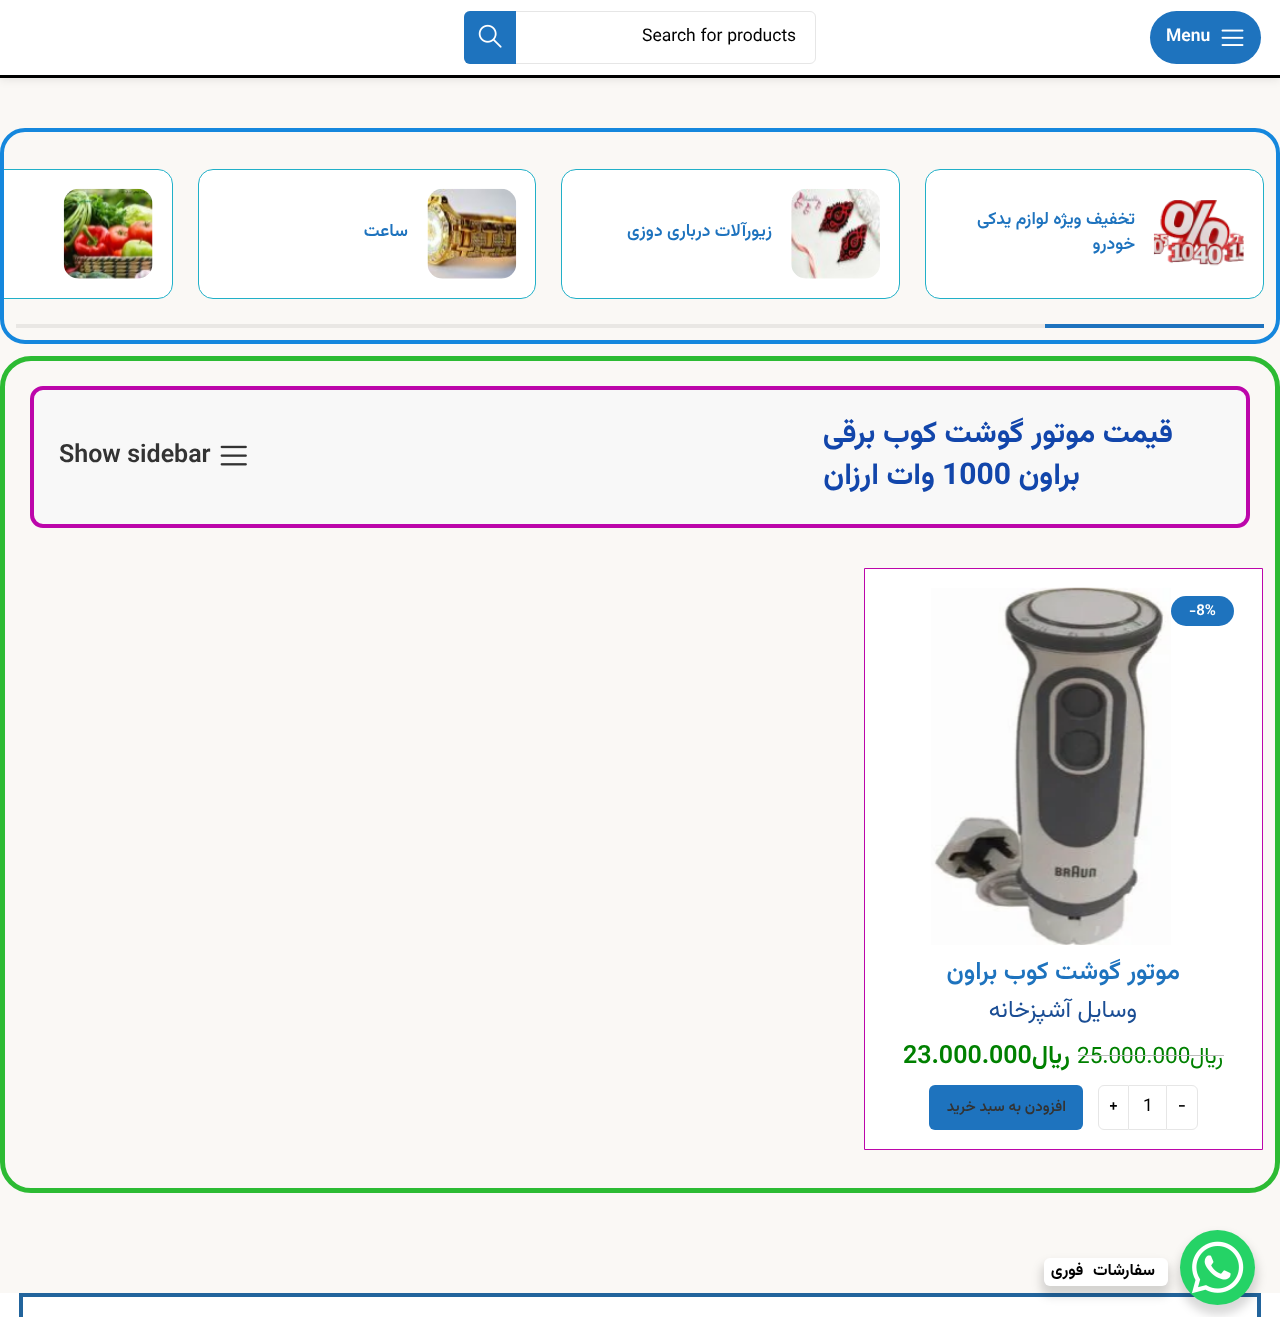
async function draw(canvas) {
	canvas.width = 1280;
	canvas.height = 1317;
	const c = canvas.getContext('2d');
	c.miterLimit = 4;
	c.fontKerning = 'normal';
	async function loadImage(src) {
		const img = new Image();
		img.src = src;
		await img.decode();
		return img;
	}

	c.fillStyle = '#fff';
	c.fillRect(0, 0, 1280, 1317);
	c.fillStyle = '#faf8f5';
	c.fillRect(0, 78, 1280, 1215);
	c.fillStyle = '#0000001a';
	c.filter = 'blur(5px)';
	c.beginPath();
	c.rect(0, 1, 1280, 78);
	c.fill();
	c.filter = 'none';
	c.fillStyle = '#fff';
	c.fillRect(0, 0, 1280, 75);
	c.fillStyle = '#000';
	c.fillRect(0, 75, 1280, 3);
	c.fillStyle = '#1e73be';
	c.beginPath();
	c.roundRect(1150, 11, 111, 53, 26.5);
	c.fill();
	c.drawImage(await loadImage('img1.png'), 1221, 29, 23, 17);
	c.font = '600 17.5px Vazirmatn';
	c.fillStyle = '#fff';
	c.fillText('Menu', 1166, 41);
	c.beginPath();
	c.roundRect(464.5, 11.5, 351, 52, 5.5);
	c.strokeStyle = '#e6e6e6';
	c.stroke();
	c.font = '17.5px Vazirmatn';
	c.fillStyle = '#000';
	c.fillText('Search for products', 642, 41);
	c.fillStyle = '#1e73be';
	c.beginPath();
	c.roundRect(464, 11, 52, 53, [6, 0, 0, 6]);
	c.fill();
	c.drawImage(await loadImage('img2.png'), 478, 24, 24, 24);
	c.beginPath();
	c.roundRect(2, 130, 1276, 212, 23);
	c.strokeStyle = '#1587dd';
	c.lineWidth = 4;
	c.stroke();
	c.fillStyle = '#fff';
	c.beginPath();
	c.roundRect(925.5, 169.5, 338, 129, 14.5);
	c.fill();
	c.strokeStyle = '#21b0c8';
	c.lineWidth = 1;
	c.stroke();
	c.drawImage(await loadImage('img3.png'), 1153, 200, 91, 66);
	c.direction = 'rtl';
	c.font = '600 17.5px Vazirmatn';
	c.fillStyle = '#1e73be';
	c.fillText('تخفیف ویژه لوازم یدکی', 1135, 224);
	c.fillText('خودرو', 1135, 249);
	c.fillStyle = '#fff';
	c.beginPath();
	c.roundRect(561.5, 169.5, 338, 129, 14.5);
	c.fill();
	c.stroke();
	c.drawImage(await loadImage('img4.png'), 791, 188, 89, 91);
	c.fillStyle = '#1e73be';
	c.fillText('زیورآلات درباری دوزی', 772, 236);
	c.fillStyle = '#fff';
	c.beginPath();
	c.roundRect(198.5, 169.5, 337, 129, 14.5);
	c.fill();
	c.stroke();
	c.drawImage(await loadImage('img5.png'), 427, 188, 90, 91);
	c.fillStyle = '#1e73be';
	c.fillText('ساعت', 408, 236);
	c.fillStyle = '#fff';
	c.beginPath();
	c.roundRect(4, 169, 169, 130, [0, 15, 15, 0]);
	c.fill();
	c.save();
	c.beginPath();
	c.rect(4, 150, 1272, 168);
	c.clip();
	c.beginPath();
	c.roundRect(-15.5, 169.5, 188, 129, 14.5);
	c.stroke();
	c.restore();
	c.drawImage(await loadImage('img6.png'), 63, 188, 90, 91);
	c.fillStyle = '#e9e7e4';
	c.fillRect(16, 324, 1029, 4);
	c.fillStyle = '#1e73be';
	c.fillRect(1045, 324, 219, 4);
	c.beginPath();
	c.roundRect(2.5, 358.5, 1275, 832, 28.5);
	c.strokeStyle = '#2cbb33';
	c.lineWidth = 5;
	c.stroke();
	c.fillStyle = '#f8f8f8';
	c.beginPath();
	c.roundRect(32, 388, 1216, 138, 11);
	c.fill();
	c.strokeStyle = '#bc06aa';
	c.lineWidth = 4;
	c.stroke();
	c.font = 'bold 30px Vazirmatn';
	c.fillStyle = '#1246ab';
	c.fillText('قیمت موتور گوشت کوب برقی', 1173, 442);
	c.fillText('براون', 1080, 484);
	c.direction = 'ltr';
	c.fillText('1000', 942, 484);
	c.direction = 'rtl';
	c.fillText('وات ارزان', 935, 484);
	c.drawImage(await loadImage('img7.png'), 220, 445, 27, 21);
	c.direction = 'ltr';
	c.font = '600 25px Vazirmatn';
	c.fillStyle = '#333';
	c.fillText('Show sidebar', 59, 462);
	c.fillStyle = '#fff';
	c.beginPath();
	c.rect(864.5, 568.5, 398, 581);
	c.fill();
	c.lineWidth = 1;
	c.stroke();
	c.fillStyle = '#1e73be';
	c.beginPath();
	c.roundRect(1171, 596, 63, 30, 15);
	c.fill();
	c.font = '600 15px Vazirmatn';
	c.fillStyle = '#fff';
	c.fillText('-8%', 1189, 615);
	c.drawImage(await loadImage('img8.png'), 931, 587, 240, 358);
	c.direction = 'rtl';
	c.font = '600 25px Vazirmatn';
	c.fillStyle = '#1e73be';
	c.fillText('موتور گوشت کوب براون', 1180, 979);
	c.font = '23.75px Vazirmatn';
	c.fillStyle = '#1a4d94';
	c.fillText('وسایل آشپزخانه', 1137, 1017);
	c.font = '22.5px Vazirmatn';
	c.fillStyle = '#008000';
	c.fillText('﷼', 1223, 1063);
	c.direction = 'ltr';
	c.fillText('25.000.000', 1077, 1063);
	c.fillStyle = '#bbb';
	c.fillRect(1190, 1055, 34, 1);
	c.fillRect(1078, 1055, 112, 1);
	c.direction = 'rtl';
	c.font = '600 25px Vazirmatn';
	c.fillStyle = '#008000';
	c.fillText('﷼', 1070, 1063);
	c.direction = 'ltr';
	c.fillText('23.000.000', 903, 1063);
	c.beginPath();
	c.roundRect(1166.5, 1085.5, 31, 44, [0, 5.5, 5.5, 0]);
	c.strokeStyle = '#e6e6e6';
	c.stroke();
	c.font = '600 16.25px Vazirmatn';
	c.fillStyle = '#000';
	c.fillText('-', 1178, 1110);
	c.fillStyle = '#e6e6e6';
	c.fillRect(1129, 1085, 37, 1);
	c.fillRect(1129, 1129, 37, 1);
	c.font = '17.5px Vazirmatn';
	c.fillStyle = '#000';
	c.fillText('1', 1143, 1111);
	c.beginPath();
	c.roundRect(1098.5, 1085.5, 30, 44, [5.5, 0, 0, 5.5]);
	c.stroke();
	c.font = '600 16.25px Vazirmatn';
	c.fillText('+', 1109, 1110);
	c.fillStyle = '#1e73be';
	c.beginPath();
	c.roundRect(929, 1085, 154, 45, 6);
	c.fill();
	c.direction = 'rtl';
	c.font = '600 15px Vazirmatn';
	c.fillStyle = '#333';
	c.fillText('افزودن به سبد خرید', 1066, 1111);
	c.strokeStyle = '#22649c';
	c.lineWidth = 4;
	c.strokeRect(21, 1295, 1238, 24);
	c.fillStyle = '#00000026';
	c.filter = 'blur(5px)';
	c.beginPath();
	c.roundRect(1178, 1235, 80, 80, 40);
	c.fill();
	c.filter = 'none';
	c.fillStyle = '#25d366';
	c.beginPath();
	c.arc(1217.5, 1267.5, 37.5, 0, 2 * Math.PI);
	c.fill();
	c.drawImage(await loadImage('img9.png'), 1192, 1241, 52, 53);
	c.fillStyle = '#00000026';
	c.filter = 'blur(5px)';
	c.beginPath();
	c.roundRect(1041, 1263, 129, 33, 9);
	c.fill();
	c.filter = 'none';
	c.fillStyle = '#fff';
	c.beginPath();
	c.roundRect(1044, 1258, 124, 28, 6);
	c.fill();
	c.letterSpacing = '-0.5px';
	c.wordSpacing = '6px';
	c.font = 'bold 16.25px Vazirmatn';
	c.fillStyle = '#000';
	c.fillText('سفارشات فوری', 1155, 1275);
}

draw(document.querySelector('canvas'));
